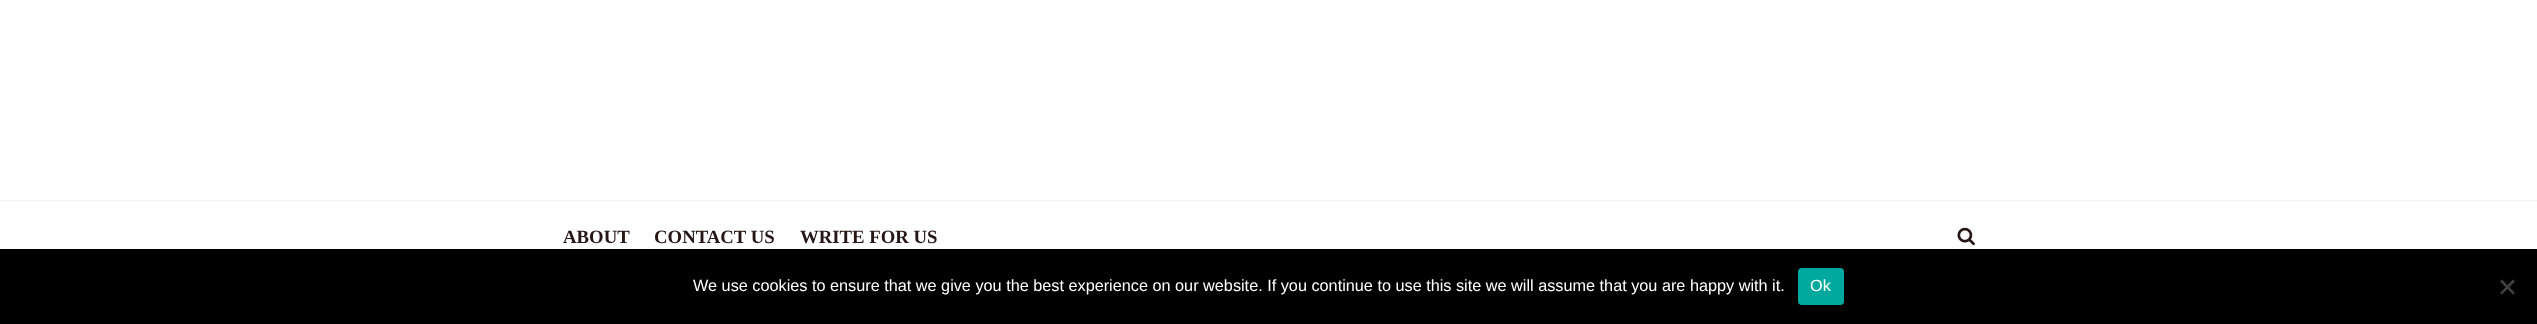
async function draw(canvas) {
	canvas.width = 2537;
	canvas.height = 324;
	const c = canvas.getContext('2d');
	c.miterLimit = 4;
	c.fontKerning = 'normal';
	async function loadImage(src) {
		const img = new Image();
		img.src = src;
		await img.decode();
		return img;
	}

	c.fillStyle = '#fff';
	c.fillRect(0, 0, 2537, 324);
	c.fillStyle = '#f2f2f2';
	c.fillRect(0, 200, 2537, 1);
	c.font = 'bold 18.75px Liberation Serif';
	c.fillStyle = '#261616';
	for (const [text, x, y] of [
		['ABOUT', 563, 243],
		['CONTACT US', 654, 243],
		['WRITE FOR US', 800, 243],
	]) {
		c.fillText(text, x, y);
	}
	c.drawImage(await loadImage('img1.png'), 1957, 227, 18, 19);
	c.fillStyle = '#000';
	c.fillRect(0, 249, 2537, 75);
	c.font = '16.25px Liberation Sans';
	c.fillStyle = '#fff';
	c.fillText('We use cookies to ensure that we give you the best experience on our website. If you continue to use this site we will assume that you are happy with it.', 693, 291);
	c.fillStyle = '#00a99d';
	c.beginPath();
	c.roundRect(1798, 268, 46, 37, 4);
	c.fill();
	c.fillStyle = '#fff';
	c.fillText('Ok', 1810, 291);
	c.fillStyle = '#404040';
	c.beginPath();
	c.moveTo(2513, 279.5);
	c.lineTo(2515, 281.5);
	c.lineTo(2502, 294.5);
	c.lineTo(2500, 293);
	c.closePath();
	c.fill();
	c.beginPath();
	c.moveTo(2500, 281.5);
	c.lineTo(2502, 279.5);
	c.lineTo(2515, 293);
	c.lineTo(2513, 294.5);
	c.closePath();
	c.fill();
}

draw(document.querySelector('canvas'));
